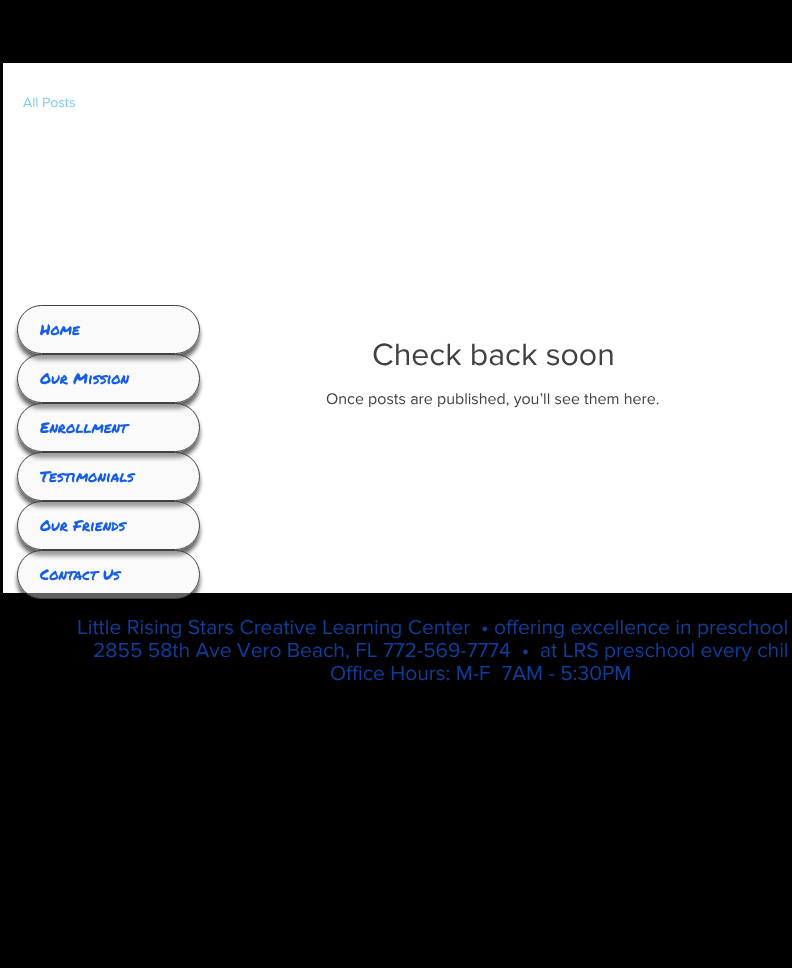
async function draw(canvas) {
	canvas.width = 792;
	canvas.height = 968;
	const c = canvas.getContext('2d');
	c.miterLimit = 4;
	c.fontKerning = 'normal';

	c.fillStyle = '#000';
	c.fillRect(0, 0, 792, 968);
	c.fillStyle = '#fff';
	c.fillRect(3, 63, 789, 530);
	c.font = '14px "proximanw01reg"';
	c.fillStyle = '#7fccf7';
	c.fillText('All Posts', 23, 107);
	c.font = '32px "proximanw01reg"';
	c.fillStyle = '#414141';
	c.fillText('Check back soon', 372, 365);
	c.font = '16px "proximanw01reg"';
	c.fillText('Once posts are published, you’ll see them here.', 326, 404);
	c.save();
	c.beginPath();
	c.moveTo(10, 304);
	c.lineTo(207, 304);
	c.lineTo(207, 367);
	c.lineTo(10, 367);
	c.closePath();
	c.moveTo(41.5, 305);
	c.lineTo(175.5, 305);
	c.bezierCurveTo(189, 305, 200, 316, 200, 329.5);
	c.bezierCurveTo(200, 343, 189, 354, 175.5, 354);
	c.lineTo(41.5, 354);
	c.bezierCurveTo(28, 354, 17, 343, 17, 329.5);
	c.bezierCurveTo(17, 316, 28, 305, 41.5, 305);
	c.closePath();
	c.clip('evenodd');
	c.fillStyle = '#00000099';
	c.filter = 'blur(2px)';
	c.beginPath();
	c.roundRect(17, 311, 183, 49, 24.5);
	c.fill();
	c.filter = 'none';
	c.restore();
	c.fillStyle = '#f2f2f266';
	c.beginPath();
	c.roundRect(17.5, 305.5, 182, 48, 24);
	c.fill();
	c.strokeStyle = '#414141';
	c.stroke();
	c.font = '15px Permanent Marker';
	c.fillStyle = '#155de9';
	c.fillText('Home', 40, 335);
	c.save();
	c.beginPath();
	c.moveTo(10, 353);
	c.lineTo(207, 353);
	c.lineTo(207, 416);
	c.lineTo(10, 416);
	c.closePath();
	c.moveTo(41.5, 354);
	c.lineTo(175.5, 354);
	c.bezierCurveTo(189, 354, 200, 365, 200, 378.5);
	c.bezierCurveTo(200, 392, 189, 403, 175.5, 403);
	c.lineTo(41.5, 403);
	c.bezierCurveTo(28, 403, 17, 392, 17, 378.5);
	c.bezierCurveTo(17, 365, 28, 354, 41.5, 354);
	c.closePath();
	c.clip('evenodd');
	c.fillStyle = '#00000099';
	c.filter = 'blur(2px)';
	c.beginPath();
	c.roundRect(17, 360, 183, 49, 24.5);
	c.fill();
	c.filter = 'none';
	c.restore();
	c.fillStyle = '#f2f2f266';
	c.beginPath();
	c.roundRect(17.5, 354.5, 182, 48, 24);
	c.fill();
	c.stroke();
	c.fillStyle = '#155de9';
	c.fillText('Our Mission', 40, 384);
	c.save();
	c.beginPath();
	c.moveTo(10, 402);
	c.lineTo(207, 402);
	c.lineTo(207, 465);
	c.lineTo(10, 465);
	c.closePath();
	c.moveTo(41.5, 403);
	c.lineTo(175.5, 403);
	c.bezierCurveTo(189, 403, 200, 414, 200, 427.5);
	c.bezierCurveTo(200, 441, 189, 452, 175.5, 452);
	c.lineTo(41.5, 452);
	c.bezierCurveTo(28, 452, 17, 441, 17, 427.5);
	c.bezierCurveTo(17, 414, 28, 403, 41.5, 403);
	c.closePath();
	c.clip('evenodd');
	c.fillStyle = '#00000099';
	c.filter = 'blur(2px)';
	c.beginPath();
	c.roundRect(17, 409, 183, 49, 24.5);
	c.fill();
	c.filter = 'none';
	c.restore();
	c.fillStyle = '#f2f2f266';
	c.beginPath();
	c.roundRect(17.5, 403.5, 182, 48, 24);
	c.fill();
	c.stroke();
	c.fillStyle = '#155de9';
	c.fillText('Enrollment', 40, 433);
	c.save();
	c.beginPath();
	c.moveTo(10, 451);
	c.lineTo(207, 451);
	c.lineTo(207, 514);
	c.lineTo(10, 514);
	c.closePath();
	c.moveTo(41.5, 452);
	c.lineTo(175.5, 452);
	c.bezierCurveTo(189, 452, 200, 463, 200, 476.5);
	c.bezierCurveTo(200, 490, 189, 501, 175.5, 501);
	c.lineTo(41.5, 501);
	c.bezierCurveTo(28, 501, 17, 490, 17, 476.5);
	c.bezierCurveTo(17, 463, 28, 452, 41.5, 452);
	c.closePath();
	c.clip('evenodd');
	c.fillStyle = '#00000099';
	c.filter = 'blur(2px)';
	c.beginPath();
	c.roundRect(17, 458, 183, 49, 24.5);
	c.fill();
	c.filter = 'none';
	c.restore();
	c.fillStyle = '#f2f2f266';
	c.beginPath();
	c.roundRect(17.5, 452.5, 182, 48, 24);
	c.fill();
	c.stroke();
	c.fillStyle = '#155de9';
	c.fillText('Testimonials', 40, 482);
	c.save();
	c.beginPath();
	c.moveTo(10, 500);
	c.lineTo(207, 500);
	c.lineTo(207, 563);
	c.lineTo(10, 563);
	c.closePath();
	c.moveTo(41.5, 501);
	c.lineTo(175.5, 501);
	c.bezierCurveTo(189, 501, 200, 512, 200, 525.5);
	c.bezierCurveTo(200, 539, 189, 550, 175.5, 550);
	c.lineTo(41.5, 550);
	c.bezierCurveTo(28, 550, 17, 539, 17, 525.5);
	c.bezierCurveTo(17, 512, 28, 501, 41.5, 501);
	c.closePath();
	c.clip('evenodd');
	c.fillStyle = '#00000099';
	c.filter = 'blur(2px)';
	c.beginPath();
	c.roundRect(17, 507, 183, 49, 24.5);
	c.fill();
	c.filter = 'none';
	c.restore();
	c.fillStyle = '#f2f2f266';
	c.beginPath();
	c.roundRect(17.5, 501.5, 182, 48, 24);
	c.fill();
	c.stroke();
	c.fillStyle = '#155de9';
	c.fillText('Our Friends', 40, 531);
	c.save();
	c.beginPath();
	c.moveTo(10, 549);
	c.lineTo(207, 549);
	c.lineTo(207, 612);
	c.lineTo(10, 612);
	c.closePath();
	c.moveTo(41.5, 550);
	c.lineTo(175.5, 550);
	c.bezierCurveTo(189, 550, 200, 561, 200, 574.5);
	c.bezierCurveTo(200, 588, 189, 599, 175.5, 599);
	c.lineTo(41.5, 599);
	c.bezierCurveTo(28, 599, 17, 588, 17, 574.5);
	c.bezierCurveTo(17, 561, 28, 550, 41.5, 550);
	c.closePath();
	c.clip('evenodd');
	c.fillStyle = '#00000099';
	c.filter = 'blur(2px)';
	c.beginPath();
	c.roundRect(17, 556, 183, 49, 24.5);
	c.fill();
	c.filter = 'none';
	c.restore();
	c.fillStyle = '#f2f2f266';
	c.beginPath();
	c.roundRect(17.5, 550.5, 182, 48, 24);
	c.fill();
	c.stroke();
	c.fillStyle = '#155de9';
	c.fillText('Contact Us', 40, 580);
	c.font = '21px "proximanw01reg"';
	c.fillStyle = '#0e3e9b';
	for (const [text, x, y] of [
		['Little Rising Stars Creative Learning Center  • offering excellence in preschool', 77, 634],
		['2855 58th Ave Vero Beach, FL 772-569-7774  •  at LRS preschool every chil', 93, 657],
		['Office Hours: M-F  7AM - 5:30PM', 330, 680],
	]) {
		c.fillText(text, x, y);
	}
}

draw(document.querySelector('canvas'));
